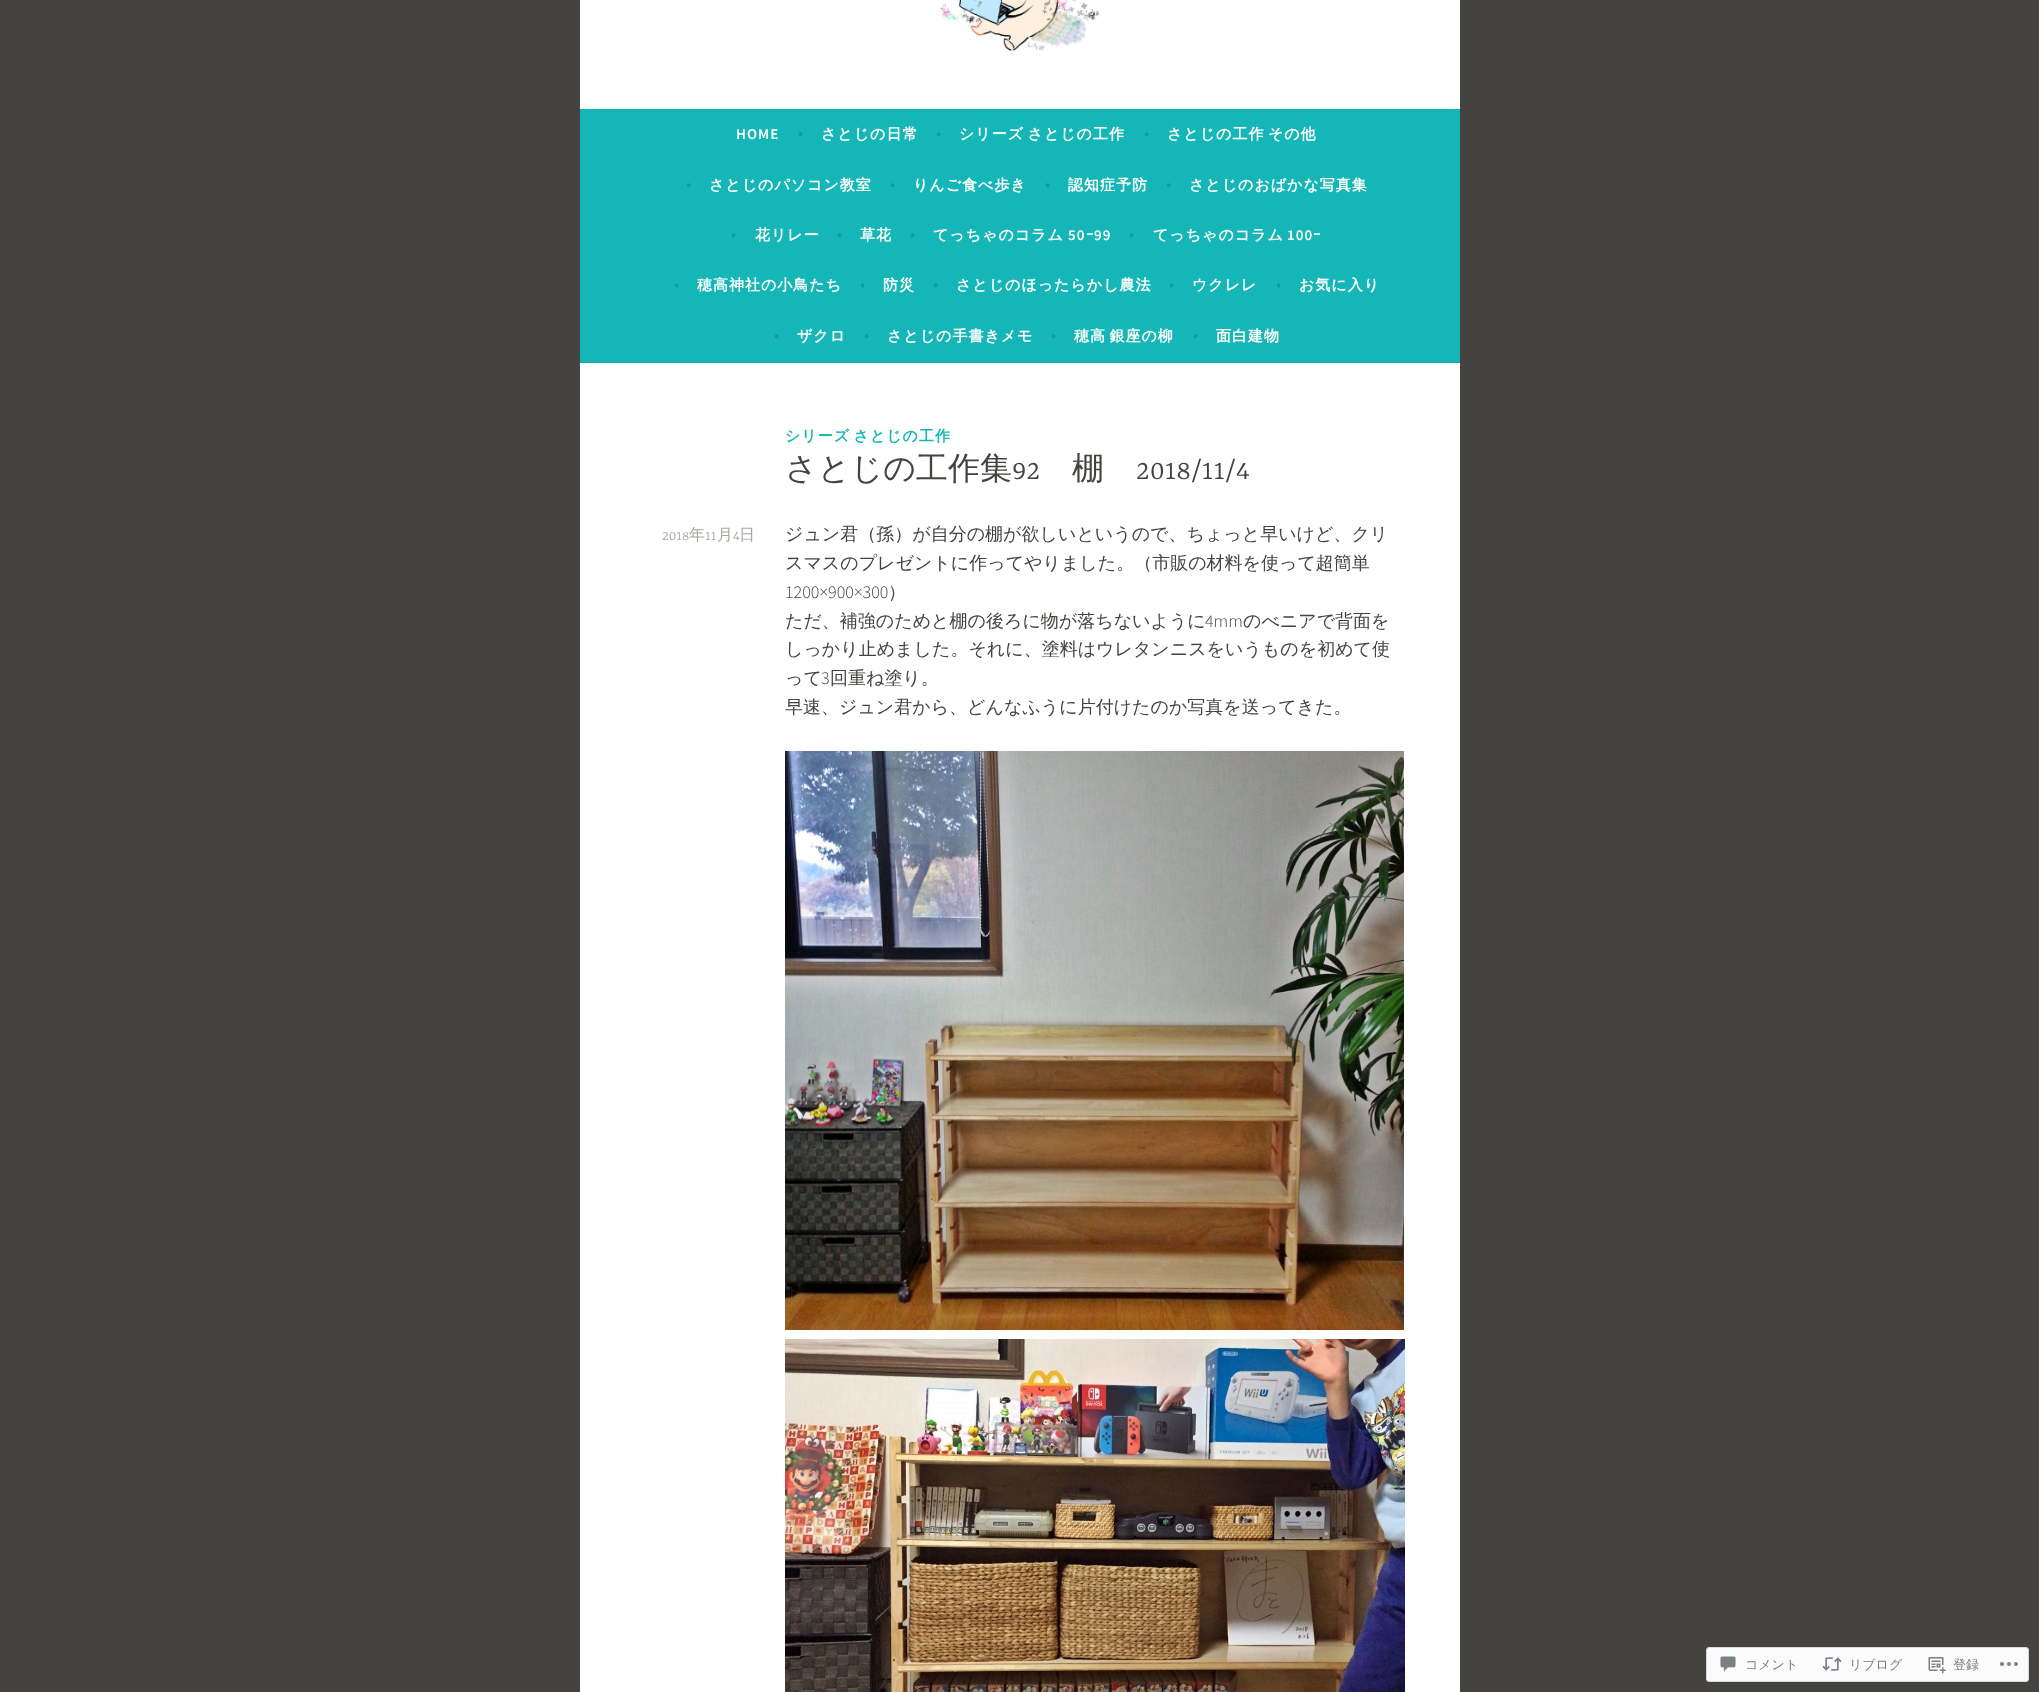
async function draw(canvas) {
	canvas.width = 2039;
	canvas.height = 1692;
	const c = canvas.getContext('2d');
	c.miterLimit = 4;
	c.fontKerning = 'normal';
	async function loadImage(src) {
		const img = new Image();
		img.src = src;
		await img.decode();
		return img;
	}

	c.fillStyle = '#444340';
	c.fillRect(0, 0, 2039, 1692);
	c.fillStyle = '#fff';
	c.fillRect(580, 0, 880, 109);
	c.drawImage(await loadImage('img1.png'), 939, 0, 161, 51);
	c.fillStyle = '#15b6b8';
	c.fillRect(580, 109, 880, 252);
	c.fillStyle = '#14b1b2';
	c.fillRect(580, 361, 880, 2);
	c.letterSpacing = '1px';
	c.font = '600 15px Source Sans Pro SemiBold';
	c.fillStyle = '#fff';
	c.fillText('HOME', 736, 139);
	c.letterSpacing = '0px';
	c.font = '300 18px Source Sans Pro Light';
	c.fillStyle = '#129b9c';
	c.fillText('•', 798, 139);
	c.letterSpacing = '1px';
	c.font = 'bold 15px WenQuanYi Zen Hei';
	c.fillStyle = '#fff';
	c.fillText('さとじの日常', 821, 139);
	c.letterSpacing = '0px';
	c.font = '300 18px Source Sans Pro Light';
	c.fillStyle = '#129b9c';
	c.fillText('•', 936, 139);
	c.letterSpacing = '1px';
	c.wordSpacing = '-2px';
	c.font = 'bold 15px WenQuanYi Zen Hei';
	c.fillStyle = '#fff';
	c.fillText('シリーズ さとじの工作', 959, 139);
	c.letterSpacing = '0px';
	c.wordSpacing = '0px';
	c.font = '300 18px Source Sans Pro Light';
	c.fillStyle = '#129b9c';
	c.fillText('•', 1144, 139);
	c.letterSpacing = '1px';
	c.wordSpacing = '-2px';
	c.font = 'bold 15px WenQuanYi Zen Hei';
	c.fillStyle = '#fff';
	c.fillText('さとじの工作 その他', 1167, 139);
	c.letterSpacing = '0px';
	c.wordSpacing = '0px';
	c.font = '300 18px Source Sans Pro Light';
	c.fillStyle = '#129b9c';
	c.fillText('•', 686, 190);
	c.letterSpacing = '1px';
	c.font = 'bold 15px WenQuanYi Zen Hei';
	c.fillStyle = '#fff';
	c.fillText('さとじのパソコン教室', 709, 190);
	c.letterSpacing = '0px';
	c.font = '300 18px Source Sans Pro Light';
	c.fillStyle = '#129b9c';
	c.fillText('•', 890, 190);
	c.letterSpacing = '1px';
	c.font = 'bold 15px WenQuanYi Zen Hei';
	c.fillStyle = '#fff';
	c.fillText('りんご食べ歩き', 913, 190);
	c.letterSpacing = '0px';
	c.font = '300 18px Source Sans Pro Light';
	c.fillStyle = '#129b9c';
	c.fillText('•', 1045, 190);
	c.letterSpacing = '1px';
	c.font = 'bold 15px WenQuanYi Zen Hei';
	c.fillStyle = '#fff';
	c.fillText('認知症予防', 1068, 190);
	c.letterSpacing = '0px';
	c.font = '300 18px Source Sans Pro Light';
	c.fillStyle = '#129b9c';
	c.fillText('•', 1166, 190);
	c.letterSpacing = '1px';
	c.font = 'bold 15px WenQuanYi Zen Hei';
	c.fillStyle = '#fff';
	c.fillText('さとじのおばかな写真集', 1189, 190);
	c.letterSpacing = '0px';
	c.font = '300 18px Source Sans Pro Light';
	c.fillStyle = '#129b9c';
	c.fillText('•', 731, 240);
	c.letterSpacing = '1px';
	c.font = 'bold 15px WenQuanYi Zen Hei';
	c.fillStyle = '#fff';
	c.fillText('花リレー', 755, 240);
	c.letterSpacing = '0px';
	c.font = '300 18px Source Sans Pro Light';
	c.fillStyle = '#129b9c';
	c.fillText('•', 837, 240);
	c.letterSpacing = '1px';
	c.font = 'bold 15px WenQuanYi Zen Hei';
	c.fillStyle = '#fff';
	c.fillText('草花', 860, 240);
	c.letterSpacing = '0px';
	c.font = '300 18px Source Sans Pro Light';
	c.fillStyle = '#129b9c';
	c.fillText('•', 910, 240);
	c.letterSpacing = '1px';
	c.font = 'bold 15px WenQuanYi Zen Hei';
	c.fillStyle = '#fff';
	c.fillText('てっちゃのコラム', 933, 240);
	c.font = '600 15px Source Sans Pro SemiBold';
	c.fillText('50', 1068, 240);
	c.font = 'bold 15px IPAPGothic';
	c.fillText('ｰ', 1086, 240);
	c.font = '600 15px Source Sans Pro SemiBold';
	c.fillText('99', 1094, 240);
	c.letterSpacing = '0px';
	c.font = '300 18px Source Sans Pro Light';
	c.fillStyle = '#129b9c';
	c.fillText('•', 1129, 240);
	c.letterSpacing = '1px';
	c.font = 'bold 15px WenQuanYi Zen Hei';
	c.fillStyle = '#fff';
	c.fillText('てっちゃのコラム', 1153, 240);
	c.font = '600 15px Source Sans Pro SemiBold';
	c.fillText('100', 1287, 240);
	c.font = 'bold 15px IPAPGothic';
	c.fillText('ｰ', 1313, 240);
	c.letterSpacing = '0px';
	c.font = '300 18px Source Sans Pro Light';
	c.fillStyle = '#129b9c';
	c.fillText('•', 674, 290);
	c.letterSpacing = '1px';
	c.font = 'bold 15px WenQuanYi Zen Hei';
	c.fillStyle = '#fff';
	c.fillText('穂高神社の小鳥たち', 697, 290);
	c.letterSpacing = '0px';
	c.font = '300 18px Source Sans Pro Light';
	c.fillStyle = '#129b9c';
	c.fillText('•', 860, 290);
	c.letterSpacing = '1px';
	c.font = 'bold 15px WenQuanYi Zen Hei';
	c.fillStyle = '#fff';
	c.fillText('防災', 883, 290);
	c.letterSpacing = '0px';
	c.font = '300 18px Source Sans Pro Light';
	c.fillStyle = '#129b9c';
	c.fillText('•', 933, 290);
	c.letterSpacing = '1px';
	c.font = 'bold 15px WenQuanYi Zen Hei';
	c.fillStyle = '#fff';
	c.fillText('さとじのほったらかし農法', 956, 290);
	c.letterSpacing = '0px';
	c.font = '300 18px Source Sans Pro Light';
	c.fillStyle = '#129b9c';
	c.fillText('•', 1169, 290);
	c.letterSpacing = '1px';
	c.font = 'bold 15px WenQuanYi Zen Hei';
	c.fillStyle = '#fff';
	c.fillText('ウクレレ', 1192, 290);
	c.letterSpacing = '0px';
	c.font = '300 18px Source Sans Pro Light';
	c.fillStyle = '#129b9c';
	c.fillText('•', 1276, 290);
	c.letterSpacing = '1px';
	c.font = 'bold 15px WenQuanYi Zen Hei';
	c.fillStyle = '#fff';
	c.fillText('お気に入り', 1299, 290);
	c.letterSpacing = '0px';
	c.font = '300 18px Source Sans Pro Light';
	c.fillStyle = '#129b9c';
	c.fillText('•', 774, 341);
	c.letterSpacing = '1px';
	c.font = 'bold 15px WenQuanYi Zen Hei';
	c.fillStyle = '#fff';
	c.fillText('ザクロ', 797, 341);
	c.letterSpacing = '0px';
	c.font = '300 18px Source Sans Pro Light';
	c.fillStyle = '#129b9c';
	c.fillText('•', 864, 341);
	c.letterSpacing = '1px';
	c.font = 'bold 15px WenQuanYi Zen Hei';
	c.fillStyle = '#fff';
	c.fillText('さとじの手書きメモ', 887, 341);
	c.letterSpacing = '0px';
	c.font = '300 18px Source Sans Pro Light';
	c.fillStyle = '#129b9c';
	c.fillText('•', 1051, 341);
	c.letterSpacing = '1px';
	c.wordSpacing = '-2px';
	c.font = 'bold 15px WenQuanYi Zen Hei';
	c.fillStyle = '#fff';
	c.fillText('穂高 銀座の柳', 1074, 341);
	c.letterSpacing = '0px';
	c.wordSpacing = '0px';
	c.font = '300 18px Source Sans Pro Light';
	c.fillStyle = '#129b9c';
	c.fillText('•', 1193, 341);
	c.letterSpacing = '1px';
	c.font = 'bold 15px WenQuanYi Zen Hei';
	c.fillStyle = '#fff';
	c.fillText('面白建物', 1216, 341);
	c.fillRect(580, 363, 880, 1329);
	c.wordSpacing = '-2px';
	c.fillStyle = '#15b6b8';
	c.fillText('シリーズ さとじの工作', 785, 441);
	c.letterSpacing = '0px';
	c.wordSpacing = '0px';
	c.font = '500 32px WenQuanYi Zen Hei';
	c.fillStyle = '#444340';
	c.fillText('さとじの工作集', 785, 479);
	c.font = '300 32px Yrsa';
	c.fillText('92', 1012, 479);
	c.font = '500 32px WenQuanYi Zen Hei';
	c.fillText('棚', 1072, 479);
	c.font = '300 32px Yrsa';
	c.fillText('2018/11/4', 1136, 479);
	c.font = '300 16px Yrsa';
	c.fillStyle = '#a8a6a1';
	c.fillText('2018', 662, 540);
	c.font = '500 16px WenQuanYi Zen Hei';
	c.fillText('年', 689, 540);
	c.font = '300 16px Yrsa';
	c.fillText('11', 705, 540);
	c.font = '500 16px WenQuanYi Zen Hei';
	c.fillText('月', 717, 540);
	c.font = '300 16px Yrsa';
	c.fillText('4', 733, 540);
	c.font = '500 16px WenQuanYi Zen Hei';
	c.fillText('日', 739, 540);
	c.font = '500 18px WenQuanYi Zen Hei';
	c.fillStyle = '#444340';
	c.fillText('ジュン君（孫）が自分の棚が欲しいというので、ちょっと早いけど、クリ', 785, 540);
	c.fillText('スマスのプレゼントに作ってやりました。（市販の材料を使って超簡単', 785, 569);
	c.font = '300 18px Source Sans Pro Light';
	c.fillText('1200×900×300', 785, 598);
	c.font = '500 18px WenQuanYi Zen Hei';
	c.fillText('）', 888, 598);
	c.fillText('ただ、補強のためと棚の後ろに物が落ちないように', 785, 627);
	c.font = '300 18px Source Sans Pro Light';
	c.fillText('4mm', 1205, 627);
	c.font = '500 18px WenQuanYi Zen Hei';
	for (const [text, x, y] of [
		['のべニアで背面を', 1243, 627],
		['しっかり止めました。それに、塗料はウレタンニスをいうものを初めて使', 785, 655],
		['って', 785, 684],
	]) {
		c.fillText(text, x, y);
	}
	c.font = '300 18px Source Sans Pro Light';
	c.fillText('3', 821, 684);
	c.font = '500 18px WenQuanYi Zen Hei';
	c.fillText('回重ね塗り。', 830, 684);
	c.fillText('早速、ジュン君から、どんなふうに片付けたのか写真を送ってきた。', 785, 713);
	c.drawImage(await loadImage('img2.png'), 785, 751, 619, 579);
	c.drawImage(await loadImage('img3.png'), 785, 1339, 620, 353);
	c.fillStyle = '#fbfbfb';
	c.beginPath();
	c.roundRect(1706.5, 1647.5, 322, 34, 2.5);
	c.fill();
	c.strokeStyle = '#d9d9db';
	c.stroke();
	c.drawImage(await loadImage('img4.png'), 1720, 1656, 16, 16);
	c.font = '500 13px WenQuanYi Zen Hei';
	c.fillStyle = '#777b81';
	c.fillText('コメント', 1745, 1669);
	c.drawImage(await loadImage('img5.png'), 1822, 1657, 20, 14);
	c.fillText('リブログ', 1849, 1669);
	c.drawImage(await loadImage('img6.png'), 1928, 1657, 18, 17);
	c.fillText('登録', 1953, 1669);
	c.drawImage(await loadImage('img7.png'), 2000, 1662, 18, 4);
}

draw(document.querySelector('canvas'));
